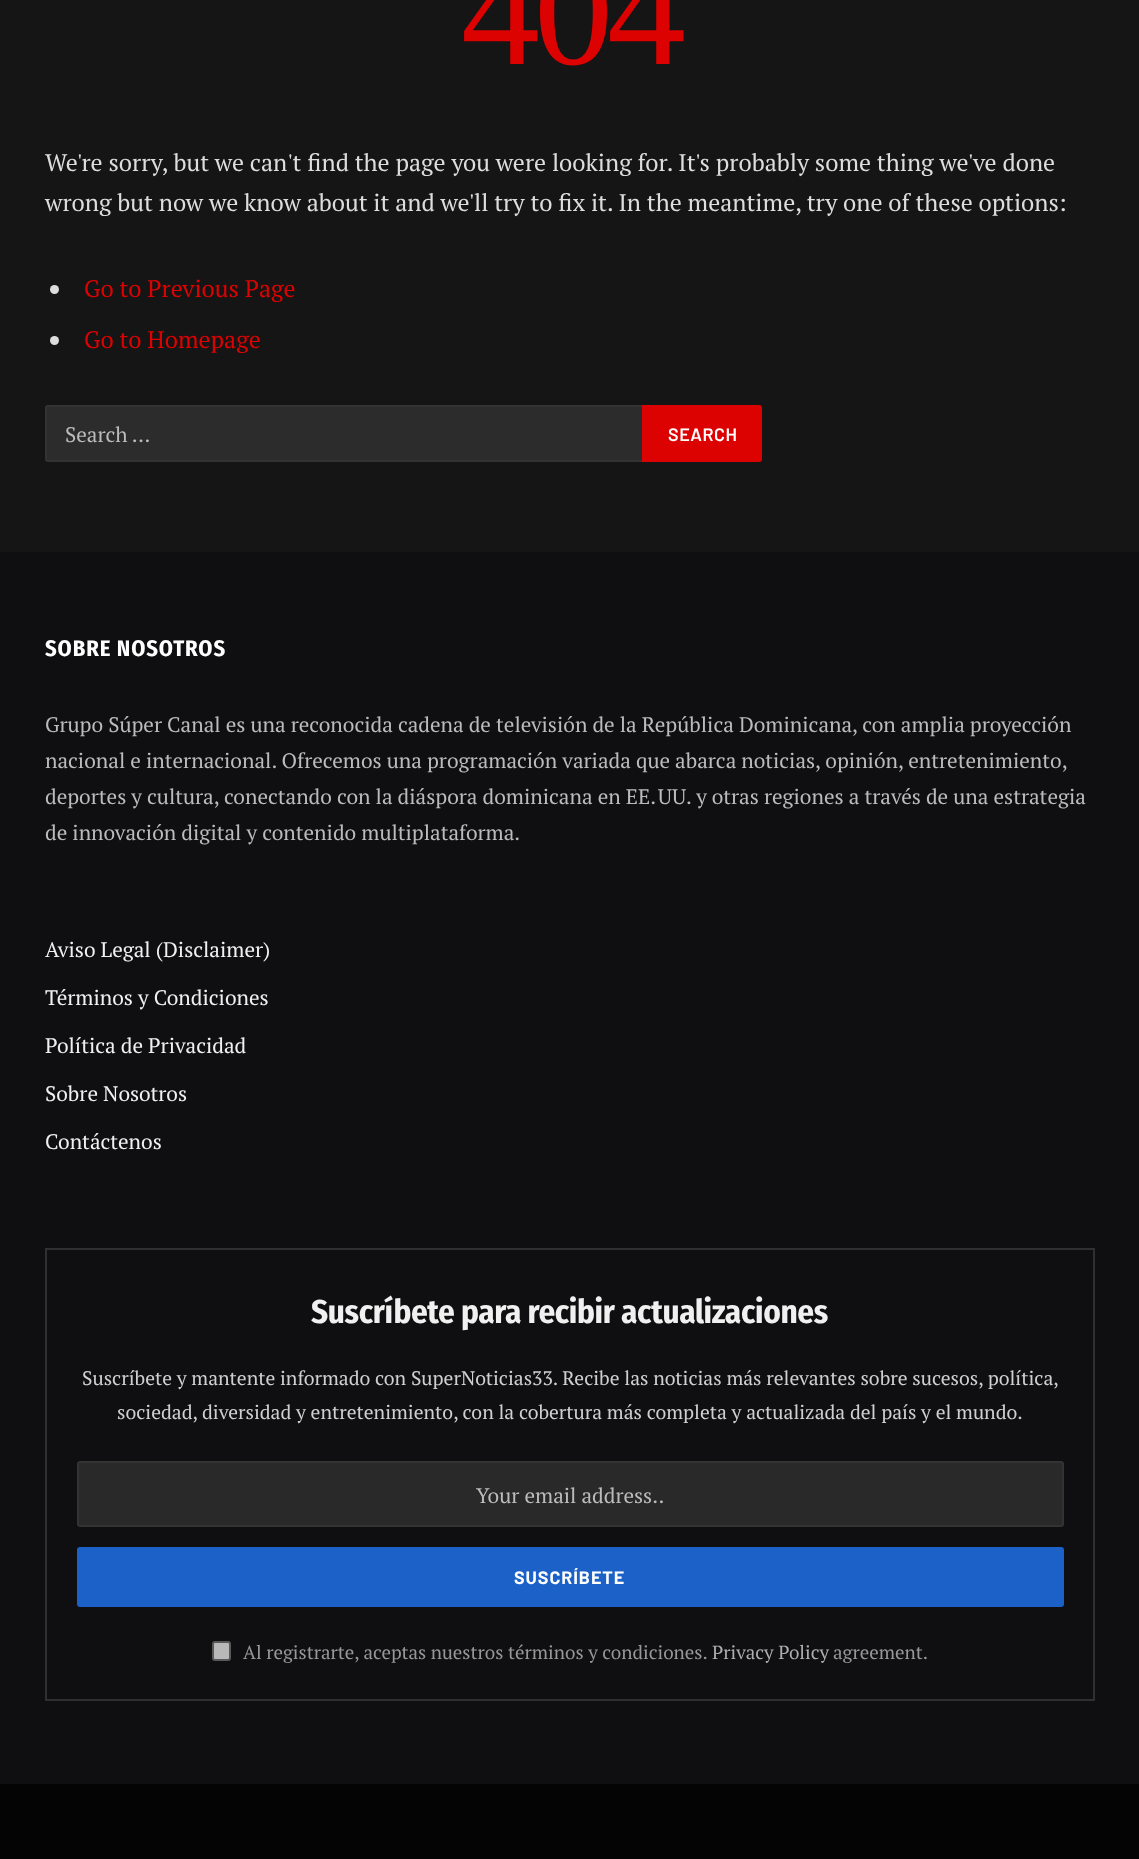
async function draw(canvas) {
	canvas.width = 1139;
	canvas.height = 1859;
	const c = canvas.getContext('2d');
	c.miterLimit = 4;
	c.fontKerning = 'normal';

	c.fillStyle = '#151516';
	c.fillRect(0, 0, 1139, 1859);
	c.letterSpacing = '-6px';
	c.font = '158px Liberation Serif';
	c.fillStyle = '#dd0202';
	c.fillText('404', 461, 64);
	c.letterSpacing = '0px';
	c.font = '23.9px PT Serif';
	c.fillStyle = '#ddd';
	c.fillText('We\'re sorry, but we can\'t find the page you were looking for. It\'s probably some thing we\'ve done', 45, 171);
	c.fillText('wrong but now we know about it and we\'ll try to fix it. In the meantime, try one of these options:', 45, 211);
	c.beginPath();
	c.arc(54.5, 289.5, 4.5, 0, 2 * Math.PI);
	c.fill();
	c.fillStyle = '#dd0202';
	c.fillText('Go to Previous Page', 84, 297);
	c.fillStyle = '#ddd';
	c.beginPath();
	c.arc(54.5, 340.5, 4.5, 0, 2 * Math.PI);
	c.fill();
	c.fillStyle = '#dd0202';
	c.fillText('Go to Homepage', 84, 348);
	c.fillStyle = '#2c2c2d';
	c.beginPath();
	c.roundRect(46, 406, 598, 55, 2);
	c.fill();
	c.strokeStyle = '#333';
	c.lineWidth = 2;
	c.stroke();
	c.font = '21px PT Serif';
	c.fillStyle = '#bbb';
	c.fillText('Search …', 65, 442);
	c.fillStyle = '#dd0202';
	c.beginPath();
	c.roundRect(642, 405, 120, 57, [0, 3, 3, 0]);
	c.fill();
	c.letterSpacing = '0.5px';
	c.font = '600 18px Barlow';
	c.fillStyle = '#fff';
	c.fillText('SEARCH', 668, 441);
	c.fillStyle = '#0f0f11';
	c.fillRect(0, 552, 1139, 1232);
	c.letterSpacing = '0.9px';
	c.font = 'bold 22.5px Fira Sans Condensed';
	c.fillStyle = '#fff';
	c.fillText('SOBRE NOSOTROS', 45, 656);
	c.letterSpacing = '0px';
	c.font = '21px PT Serif';
	c.fillStyle = '#bbb';
	for (const [text, x, y] of [
		['Grupo Súper Canal es una reconocida cadena de televisión de la República Dominicana, con amplia proyección', 45, 732],
		['nacional e internacional. Ofrecemos una programación variada que abarca noticias, opinión, entretenimiento,', 45, 768],
		['deportes y cultura, conectando con la diáspora dominicana en EE. UU. y otras regiones a través de una estrategia', 45, 804],
		['de innovación digital y contenido multiplataforma.', 45, 840],
	]) {
		c.fillText(text, x, y);
	}
	c.fillStyle = '#f0f0f0';
	for (const [text, x, y] of [
		['Aviso Legal (Disclaimer)', 45, 957],
		['Términos y Condiciones', 45, 1005],
		['Política de Privacidad', 45, 1053],
		['Sobre Nosotros', 45, 1101],
		['Contáctenos', 45, 1149],
	]) {
		c.fillText(text, x, y);
	}
	c.strokeStyle = '#303030';
	c.strokeRect(46, 1249, 1048, 451);
	c.letterSpacing = '-0.35px';
	c.font = 'bold 33px Fira Sans Condensed';
	c.fillText('Suscríbete para recibir actualizaciones', 311, 1323);
	c.letterSpacing = '0px';
	c.font = '19.5px PT Serif';
	c.fillStyle = '#cfcfcf';
	c.fillText('Suscríbete y mantente informado con SuperNoticias33. Recibe las noticias más relevantes sobre sucesos, política,', 82, 1385);
	c.fillText('sociedad, diversidad y entretenimiento, con la cobertura más completa y actualizada del país y el mundo.', 117, 1419);
	c.fillStyle = '#292929';
	c.beginPath();
	c.roundRect(78, 1462, 985, 64, 2);
	c.fill();
	c.strokeStyle = '#333';
	c.stroke();
	c.font = '21px PT Serif';
	c.fillStyle = '#bbb';
	c.fillText('Your email address..', 476, 1503);
	c.fillStyle = '#1b61c8';
	c.beginPath();
	c.roundRect(77, 1547, 987, 60, 3);
	c.fill();
	c.letterSpacing = '0.9px';
	c.font = 'bold 18px Barlow';
	c.fillStyle = '#fff';
	c.fillText('SUSCRÍBETE', 514, 1584);
	c.fillStyle = '#b8b8b8';
	c.beginPath();
	c.roundRect(213, 1642, 17, 18, 2);
	c.fill();
	c.strokeStyle = '#585858';
	c.stroke();
	c.letterSpacing = '0px';
	c.font = '18.9px PT Serif';
	c.fillStyle = '#979797';
	c.fillText('Al registrarte, aceptas nuestros términos y condiciones.', 243, 1659);
	c.fillStyle = '#adadad';
	c.fillText('Privacy Policy', 712, 1659);
	c.fillStyle = '#979797';
	c.fillText('agreement.', 833, 1659);
	c.fillStyle = '#040404';
	c.fillRect(0, 1784, 1139, 75);
}

draw(document.querySelector('canvas'));
